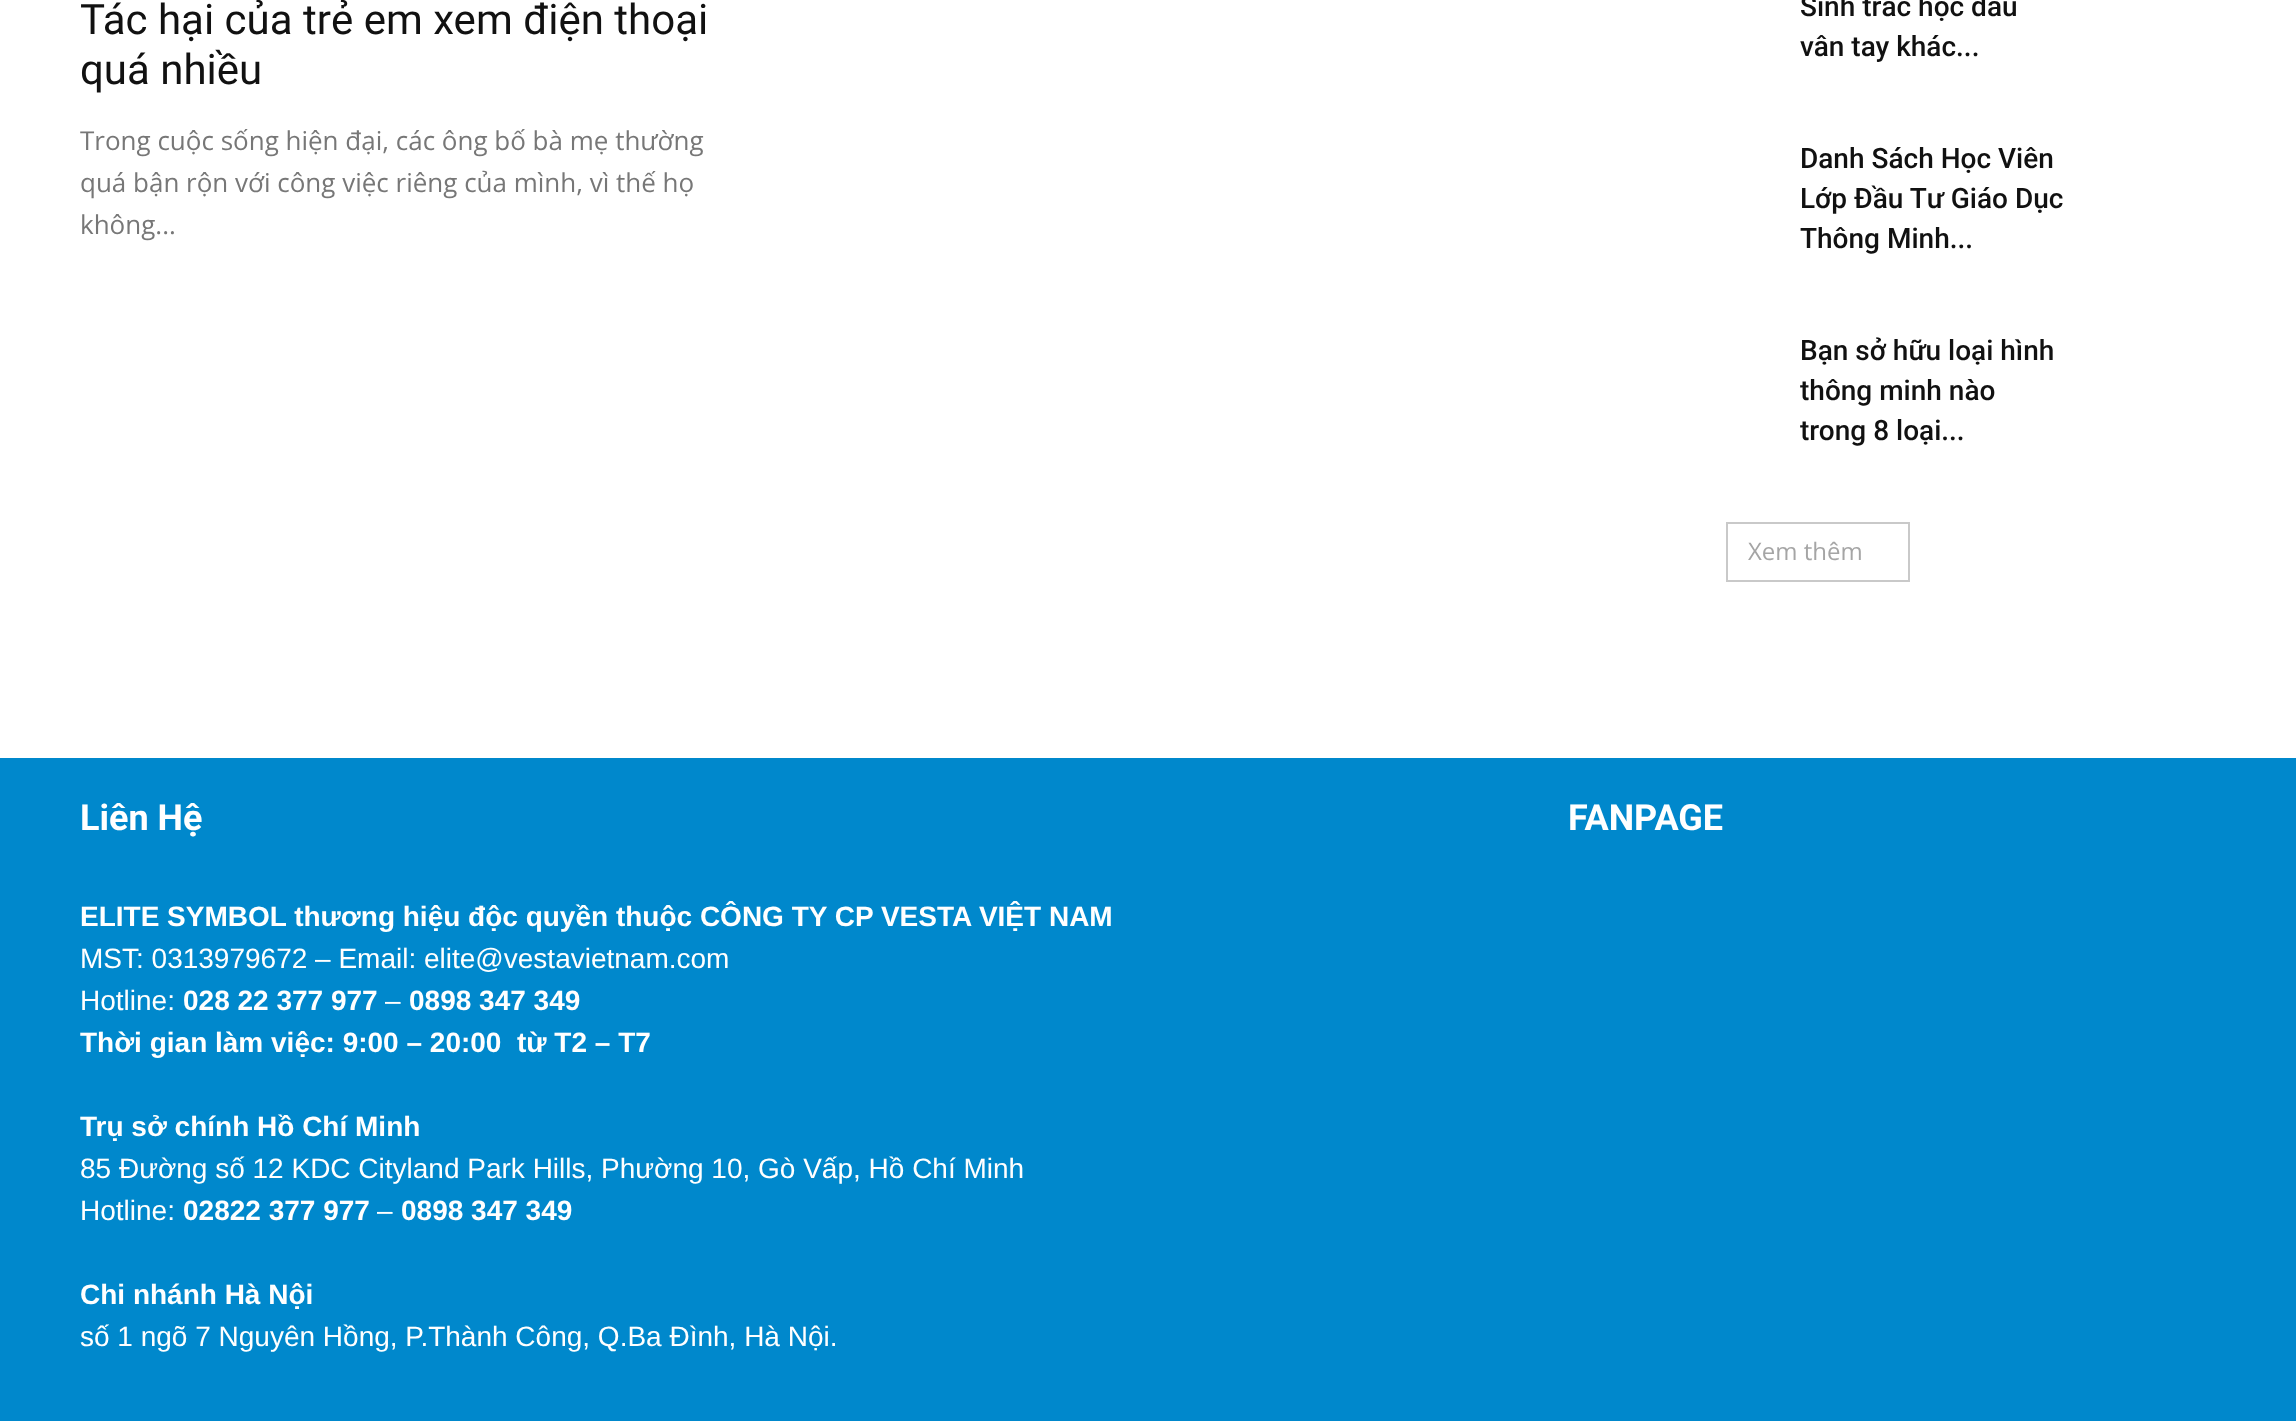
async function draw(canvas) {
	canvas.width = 2296;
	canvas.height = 1421;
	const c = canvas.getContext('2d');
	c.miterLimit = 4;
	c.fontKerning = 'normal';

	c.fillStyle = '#fff';
	c.fillRect(0, 0, 2296, 1421);
	c.font = '42px Roboto';
	c.fillStyle = '#111';
	c.fillText('Tác hại của trẻ em xem điện thoại', 80, 34);
	c.fillText('quá nhiều', 80, 84);
	c.font = '26px Open Sans';
	c.fillStyle = '#777';
	for (const [text, x, y] of [
		['Trong cuộc sống hiện đại, các ông bố bà mẹ thường', 80, 150],
		['quá bận rộn với công việc riêng của mình, vì thế họ', 80, 192],
		['không...', 80, 234],
	]) {
		c.fillText(text, x, y);
	}
	c.font = '500 28px Roboto';
	c.fillStyle = '#111';
	for (const [text, x, y] of [
		['Sinh trắc học dấu', 1800, 16],
		['vân tay khác...', 1800, 56],
		['Danh Sách Học Viên', 1800, 168],
		['Lớp Đầu Tư Giáo Dục', 1800, 208],
		['Thông Minh...', 1800, 248],
		['Bạn sở hữu loại hình', 1800, 360],
		['thông minh nào', 1800, 400],
		['trong 8 loại...', 1800, 440],
	]) {
		c.fillText(text, x, y);
	}
	c.strokeStyle = '#c9c9c9';
	c.lineWidth = 2;
	c.strokeRect(1727, 523, 182, 58);
	c.font = '24px Open Sans';
	c.fillStyle = '#a5a5a5';
	c.fillText('Xem thêm', 1748, 560);
	c.fillStyle = '#08c';
	c.fillRect(0, 758, 2296, 663);
	c.font = 'bold 36px Roboto';
	c.fillStyle = '#fff';
	c.fillText('Liên Hệ', 80, 830);
	c.font = 'bold 28px Liberation Sans';
	c.fillText('ELITE SYMBOL thương hiệu độc quyền thuộc CÔNG TY CP VESTA VIỆT NAM', 80, 926);
	c.font = '28px Liberation Sans';
	c.fillText('MST: 0313979672 – Email: elite@vestavietnam.com', 80, 968);
	c.fillText('Hotline:', 80, 1010);
	c.font = 'bold 28px Liberation Sans';
	c.fillText('028 22 377 977', 183, 1010);
	c.font = '28px Liberation Sans';
	c.fillText('–', 385, 1010);
	c.font = 'bold 28px Liberation Sans';
	for (const [text, x, y] of [
		['0898 347 349', 409, 1010],
		['Thời gian làm việc: 9:00 – 20:00  từ T2 – T7', 80, 1052],
		['Trụ sở chính Hồ Chí Minh', 80, 1136],
	]) {
		c.fillText(text, x, y);
	}
	c.font = '28px Liberation Sans';
	c.fillText('85 Đường số 12 KDC Cityland Park Hills, Phường 10, Gò Vấp, Hồ Chí Minh', 80, 1178);
	c.fillText('Hotline:', 80, 1220);
	c.font = 'bold 28px Liberation Sans';
	c.fillText('02822 377 977', 183, 1220);
	c.font = '28px Liberation Sans';
	c.fillText('–', 377, 1220);
	c.font = 'bold 28px Liberation Sans';
	c.fillText('0898 347 349', 401, 1220);
	c.fillText('Chi nhánh Hà Nội', 80, 1304);
	c.font = '28px Liberation Sans';
	c.fillText('số 1 ngõ 7 Nguyên Hồng, P.Thành Công, Q.Ba Đình, Hà Nội.', 80, 1346);
	c.font = 'bold 36px Roboto';
	c.fillText('FANPAGE', 1568, 830);
}

draw(document.querySelector('canvas'));
